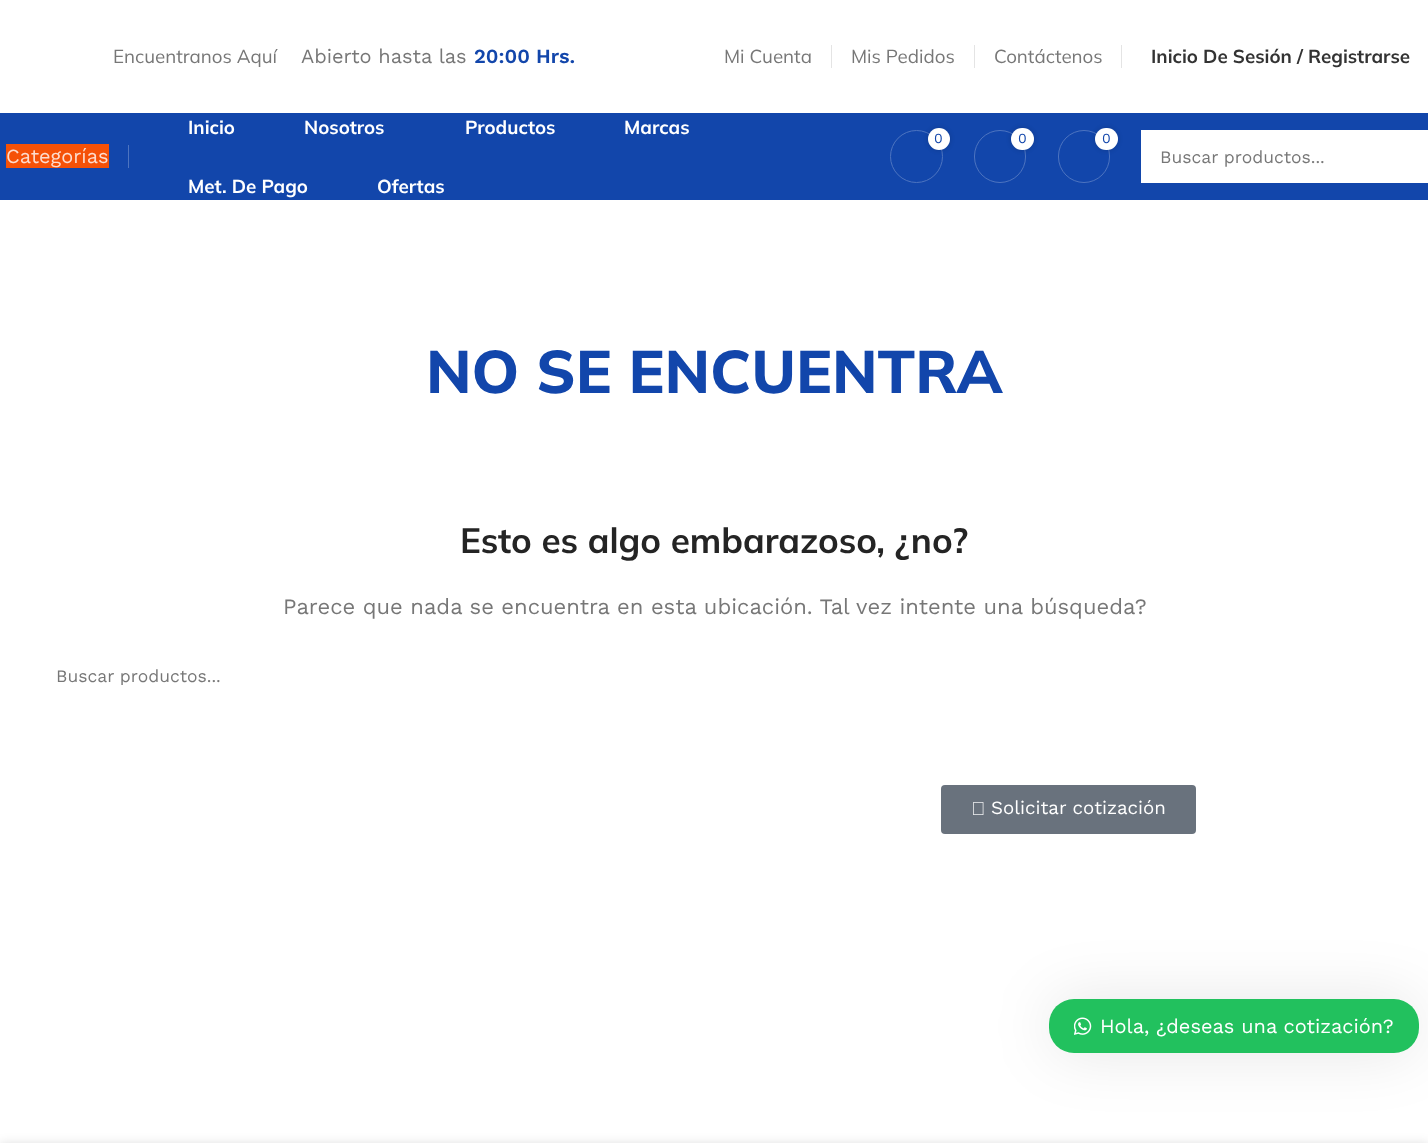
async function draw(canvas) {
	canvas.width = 1428;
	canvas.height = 1143;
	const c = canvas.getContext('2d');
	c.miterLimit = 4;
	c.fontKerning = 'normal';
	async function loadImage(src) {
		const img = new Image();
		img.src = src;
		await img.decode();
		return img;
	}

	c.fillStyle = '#fff';
	c.fillRect(0, 0, 1428, 1143);
	c.font = '18.75px Mulish';
	c.fillStyle = '#777';
	c.fillText('Encuentranos Aquí', 113, 63);
	c.font = '20px Work Sans';
	c.fillText('Abierto hasta las', 301, 63);
	c.font = '600 20px Work Sans';
	c.fillStyle = '#1246ab';
	c.fillText('20:00 Hrs.', 474, 63);
	c.font = '18.75px Mulish';
	c.fillStyle = '#777';
	c.fillText('Mi Cuenta', 724, 63);
	c.fillStyle = '#e4e4e4';
	c.fillRect(831, 45, 1, 23);
	c.fillStyle = '#777';
	c.fillText('Mis Pedidos', 851, 63);
	c.fillStyle = '#e4e4e4';
	c.fillRect(974, 45, 1, 23);
	c.fillStyle = '#777';
	c.fillText('Contáctenos', 994, 63);
	c.fillStyle = '#e4e4e4';
	c.fillRect(1121, 45, 1, 23);
	c.font = 'bold 18.75px Mulish';
	c.fillStyle = '#333';
	c.fillText('Inicio De Sesión / Registrarse', 1151, 63);
	c.fillStyle = '#1246ab';
	c.fillRect(0, 113, 1428, 87);
	c.fillStyle = '#f55107';
	c.fillRect(6, 144, 103, 24);
	c.font = '20px Work Sans';
	c.fillStyle = '#fddccd';
	c.fillText('Categorías', 6, 163);
	c.fillStyle = '#4d74c0';
	c.fillRect(128, 145, 1, 23);
	c.font = 'bold 18.75px Mulish';
	c.fillStyle = '#fff';
	for (const [text, x, y] of [
		['Inicio', 188, 134],
		['Nosotros', 304, 134],
		['Productos', 465, 134],
		['Marcas', 624, 134],
		['Met. De Pago', 188, 193],
		['Ofertas', 377, 193],
	]) {
		c.fillText(text, x, y);
	}
	c.beginPath();
	c.arc(916.5, 156.5, 26, 0, 2 * Math.PI);
	c.strokeStyle = '#4d74c0';
	c.stroke();
	c.fillStyle = '#0000002b';
	c.filter = 'blur(2.5px)';
	c.beginPath();
	c.roundRect(928, 128, 22, 22, 11);
	c.fill();
	c.filter = 'none';
	c.fillStyle = '#fff';
	c.beginPath();
	c.arc(939, 139, 11, 0, 2 * Math.PI);
	c.fill();
	c.font = '14px Work Sans';
	c.fillStyle = '#1246ab';
	c.fillText('0', 934, 143);
	c.beginPath();
	c.roundRect(974.5, 130.5, 51, 52, 25.5);
	c.stroke();
	c.fillStyle = '#0000002b';
	c.filter = 'blur(2.5px)';
	c.beginPath();
	c.roundRect(1011, 128, 23, 22, 11);
	c.fill();
	c.filter = 'none';
	c.fillStyle = '#fff';
	c.beginPath();
	c.roundRect(1011, 128, 23, 22, 11);
	c.fill();
	c.fillStyle = '#1246ab';
	c.fillText('0', 1018, 143);
	c.beginPath();
	c.roundRect(1058.5, 130.5, 51, 52, 25.5);
	c.stroke();
	c.fillStyle = '#0000002b';
	c.filter = 'blur(2.5px)';
	c.beginPath();
	c.roundRect(1095, 128, 23, 22, 11);
	c.fill();
	c.filter = 'none';
	c.fillStyle = '#fff';
	c.beginPath();
	c.roundRect(1095, 128, 23, 22, 11);
	c.fill();
	c.fillStyle = '#1246ab';
	c.fillText('0', 1102, 143);
	c.fillStyle = '#fff';
	c.fillRect(1141, 130, 287, 53);
	c.font = '17.5px Work Sans';
	c.fillStyle = '#777';
	c.fillText('Buscar productos...', 1160, 163);
	c.font = '800 60px Mulish';
	c.fillStyle = '#1246ab';
	c.fillText('NO SE ENCUENTRA', 426, 393);
	c.font = 'bold 35px Mulish';
	c.fillStyle = '#242424';
	c.fillText('Esto es algo embarazoso, ¿no?', 460, 553);
	c.font = '22px Work Sans';
	c.fillStyle = '#777';
	c.fillText('Parece que nada se encuentra en esta ubicación. Tal vez intente una búsqueda?', 283, 614);
	c.save();
	c.beginPath();
	c.rect(56, 665, 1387, 20);
	c.clip();
	c.font = '17.5px Work Sans';
	c.fillText('Buscar productos...', 56, 682);
	c.restore();
	c.fillStyle = '#69727d';
	c.beginPath();
	c.roundRect(941, 785, 255, 49, 4);
	c.fill();
	c.drawImage(await loadImage('img1.png'), 973, 802, 11, 13);
	c.font = '18.75px Work Sans';
	c.fillStyle = '#fff';
	c.fillText('Solicitar cotización', 991, 814);
	c.fillStyle = '#0000001a';
	c.filter = 'blur(31px)';
	c.beginPath();
	c.roundRect(1049, 999, 370, 54, 25);
	c.fill();
	c.filter = 'none';
	c.fillStyle = '#22c15e';
	c.beginPath();
	c.roundRect(1049, 999, 370, 54, 25);
	c.fill();
	c.drawImage(await loadImage('img2.png'), 1074, 1017, 18, 18);
	c.font = '20px Work Sans';
	c.fillStyle = '#fff';
	c.fillText('Hola, ¿deseas una cotización?', 1100, 1033);
	c.fillStyle = '#00000024';
	c.filter = 'blur(5.5px)';
	c.beginPath();
	c.rect(0, 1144, 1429, 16);
	c.fill();
	c.filter = 'none';
}

draw(document.querySelector('canvas'));
